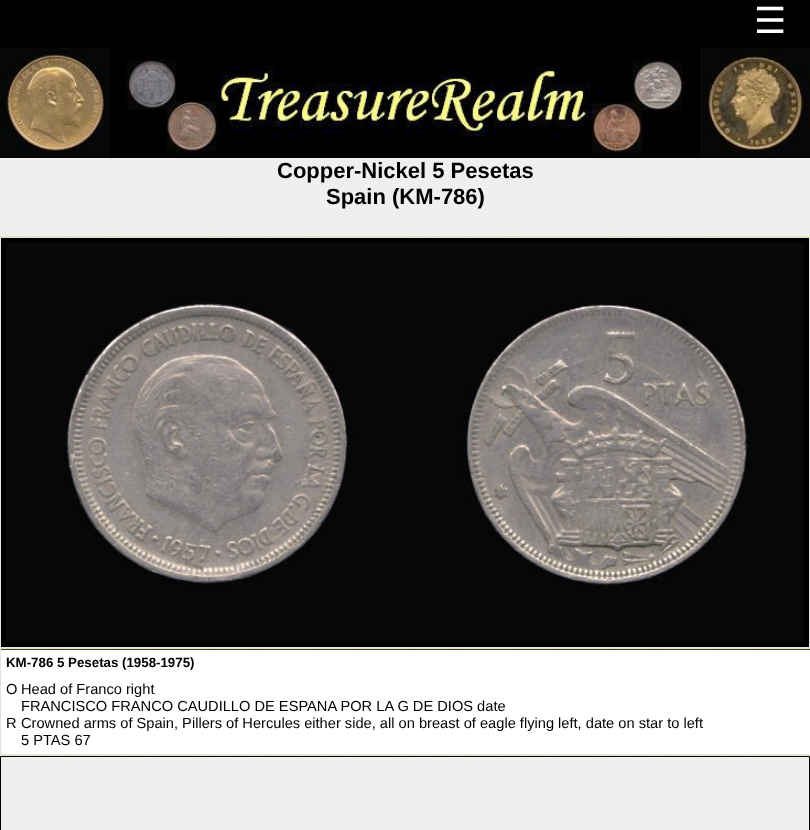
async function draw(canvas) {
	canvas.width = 810;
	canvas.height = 830;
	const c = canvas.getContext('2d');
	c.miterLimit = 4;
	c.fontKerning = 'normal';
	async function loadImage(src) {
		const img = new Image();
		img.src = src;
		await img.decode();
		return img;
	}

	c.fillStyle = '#fff';
	c.fillRect(0, 0, 810, 830);
	c.drawImage(await loadImage('img1.png'), 0, 236, 810, 520);
	c.fillStyle = '#000';
	c.fillRect(0, 0, 810, 48);
	c.font = '36px DejaVu Sans';
	c.fillStyle = '#fff';
	c.fillText('☰', 754, 33);
	c.drawImage(await loadImage('img2.png'), 0, 48, 810, 110);
	c.fillStyle = '#efefef';
	c.fillRect(0, 158, 810, 78);
	c.font = 'bold 22px Liberation Sans';
	c.fillStyle = '#000';
	c.fillText('Copper-Nickel 5 Pesetas', 277, 178);
	c.fillText('Spain (KM-786)', 326, 204);
	c.beginPath();
	c.rect(0.5, 237.5, 809, 410);
	c.fill();
	c.strokeStyle = '#e3e3e3';
	c.stroke();
	c.drawImage(await loadImage('img3.png'), 6, 243, 399, 399);
	c.drawImage(await loadImage('img4.png'), 405, 243, 399, 399);
	for (const [x, y, w, h, color] of [
		[1, 650, 809, 104, '#fff'],
		[0, 649, 810, 1, '#3e3e3e'],
		[0, 754, 810, 1, '#e3e3e3'],
		[0, 649, 1, 106, '#e3e3e3'],
	]) {
		c.fillStyle = color;
		c.fillRect(x, y, w, h);
	}
	c.font = 'bold 13.3px Liberation Sans';
	c.fillStyle = '#000';
	c.fillText('KM-786 5 Pesetas (1958-1975)', 6, 667);
	c.font = '14.65px Liberation Sans';
	for (const [text, x, y] of [
		['O', 6, 694],
		['Head of Franco right', 21, 694],
		['FRANCISCO FRANCO CAUDILLO DE ESPANA POR LA G DE DIOS date', 21, 711],
		['R', 6, 728],
		['Crowned arms of Spain, Pillers of Hercules either side, all on breast of eagle flying left, date on star to left', 21, 728],
		['5 PTAS 67', 21, 745],
	]) {
		c.fillText(text, x, y);
	}
	c.fillStyle = '#efefef';
	c.beginPath();
	c.rect(0.5, 756.5, 809, 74);
	c.fill();
	c.strokeStyle = '#000';
	c.stroke();
}

draw(document.querySelector('canvas'));
